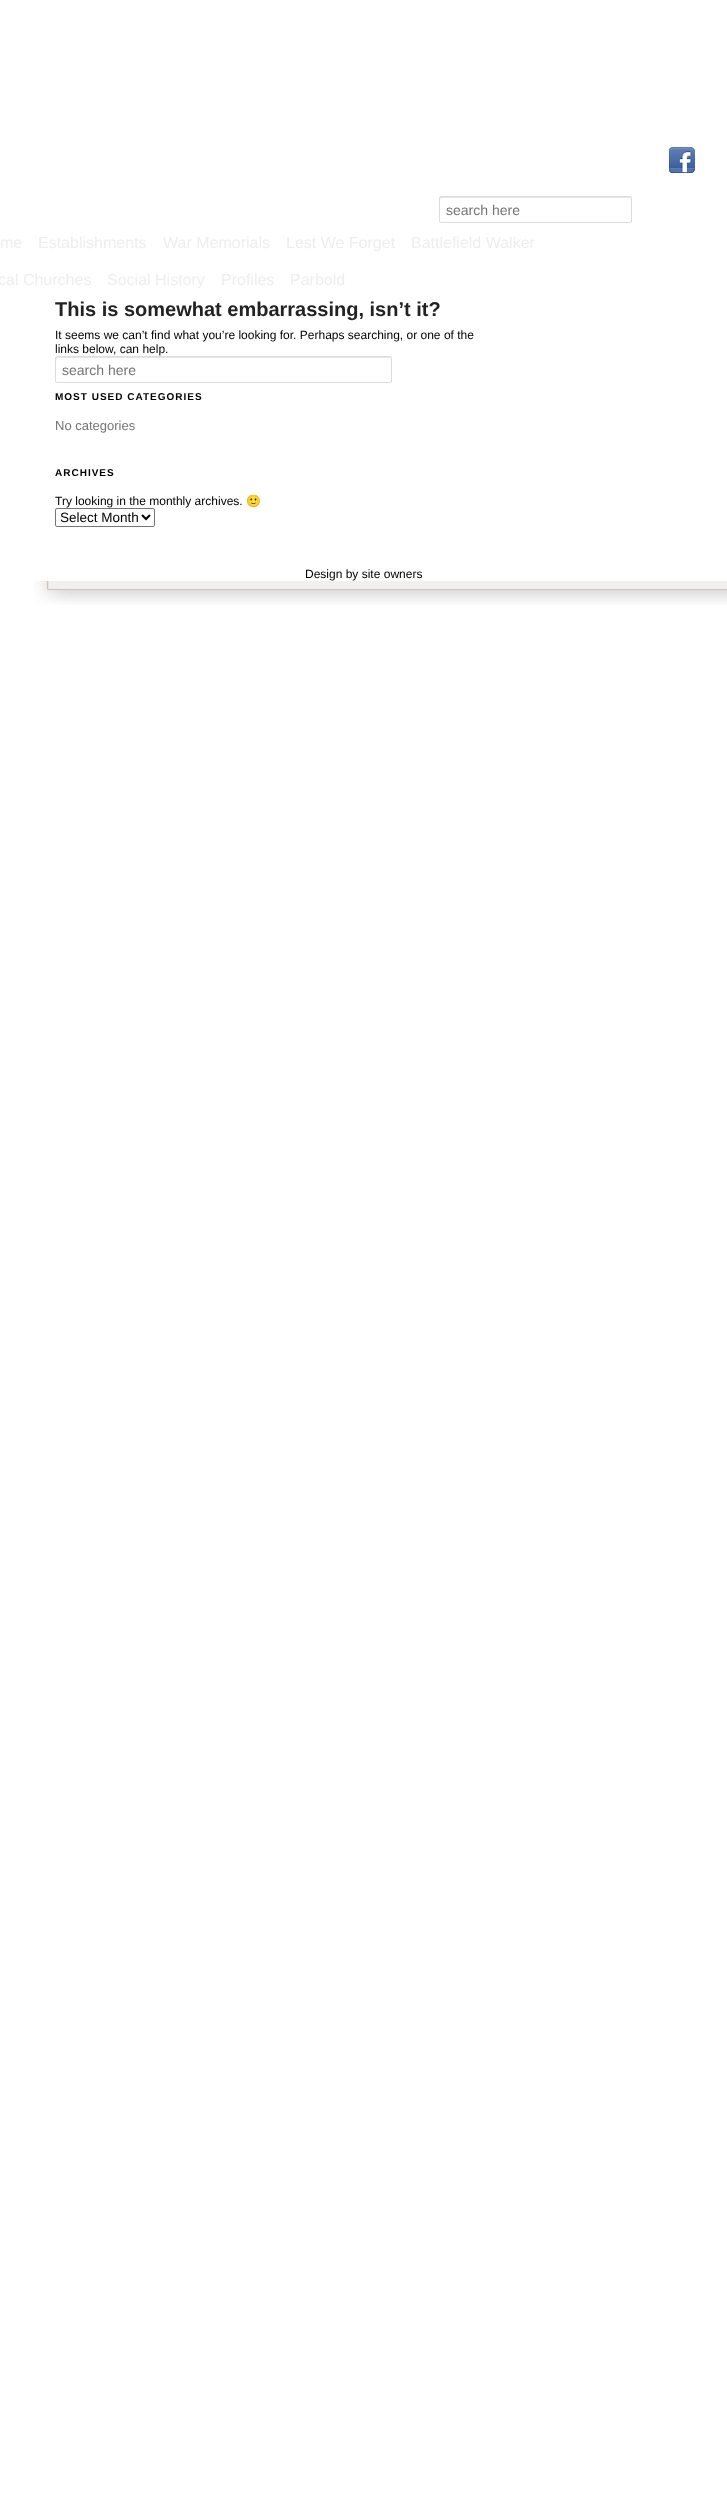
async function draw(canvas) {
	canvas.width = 727;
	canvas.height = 2508;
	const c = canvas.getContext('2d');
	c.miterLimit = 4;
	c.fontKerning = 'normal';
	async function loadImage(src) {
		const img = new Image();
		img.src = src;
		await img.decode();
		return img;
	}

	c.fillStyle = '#fff';
	c.fillRect(0, 0, 727, 2508);
	c.drawImage(await loadImage('img1.png'), 669, 147, 26, 26);
	c.fillStyle = '#e6e6e6';
	c.beginPath();
	c.moveTo(441, 198);
	c.lineTo(631, 198);
	c.lineTo(631, 197);
	c.lineTo(567, 197);
	c.lineTo(440, 197);
	c.lineTo(440, 199);
	c.closePath();
	c.fill();
	c.beginPath();
	c.roundRect(439.5, 196.5, 192, 26, 1.5);
	c.strokeStyle = '#ddd';
	c.stroke();
	c.font = '14px Liberation Sans';
	c.fillStyle = '#757575';
	c.fillText('search here', 446, 215);
	c.font = '16px Liberation Sans';
	c.fillStyle = '#eee';
	for (const [text, x, y] of [
		['me', 0, 248],
		['Establishments', 38, 248],
		['War Memorials', 163, 248],
		['Lest We Forget', 286, 248],
		['Battlefield Walker', 411, 248],
		['cal Churches', -2, 285],
		['Social History', 107, 285],
		['Profiles', 221, 285],
		['Parbold', 290, 285],
	]) {
		c.fillText(text, x, y);
	}
	c.font = 'bold 20px Liberation Sans';
	c.fillStyle = '#222';
	c.fillText('This is somewhat embarrassing, isn’t it?', 55, 316);
	c.font = '12px Liberation Sans';
	c.fillStyle = '#000';
	c.fillText('It seems we can’t find what you’re looking for. Perhaps searching, or one of the', 55, 339);
	c.fillText('links below, can help.', 55, 353);
	c.fillStyle = '#e6e6e6';
	c.beginPath();
	c.moveTo(57, 358);
	c.lineTo(391, 358);
	c.lineTo(390, 357);
	c.lineTo(57, 357);
	c.bezierCurveTo(55, 357, 56, 360, 56, 361);
	c.closePath();
	c.moveTo(391, 381);
	c.lineTo(391, 381);
	c.closePath();
	c.fill('evenodd');
	c.beginPath();
	c.roundRect(55.5, 356.5, 336, 26, 1.5);
	c.stroke();
	c.font = '14px Liberation Sans';
	c.fillStyle = '#757575';
	c.fillText('search here', 62, 375);
	c.letterSpacing = '1px';
	c.font = 'bold 10px Liberation Sans';
	c.fillStyle = '#000';
	c.fillText('MOST USED CATEGORIES', 55, 400);
	c.letterSpacing = '0px';
	c.font = '13px Liberation Sans';
	c.fillStyle = '#757575';
	c.fillText('No categories', 55, 430);
	c.letterSpacing = '1px';
	c.font = 'bold 10px Liberation Sans';
	c.fillStyle = '#000';
	c.fillText('ARCHIVES', 55, 476);
	c.letterSpacing = '0px';
	c.font = '12px Liberation Sans';
	c.fillText('Try looking in the monthly archives.', 55, 505);
	c.font = '12px Noto Color Emoji';
	c.fillText('🙂', 246, 505);
	c.beginPath();
	c.roundRect(55.5, 508.5, 99, 18, 1.5);
	c.strokeStyle = '#767676';
	c.stroke();
	c.beginPath();
	c.moveTo(142, 515);
	c.lineTo(146, 519);
	c.lineTo(150, 515);
	c.strokeStyle = '#000';
	c.lineWidth = 2;
	c.stroke();
	c.font = '13.5px Liberation Sans';
	c.fillText('Select Month', 60, 522);
	c.font = '12px Liberation Sans';
	c.fillText('Design by site owners', 305, 578);
	c.drawImage(await loadImage('img2.png'), 34, 581, 693, 24);
}

draw(document.querySelector('canvas'));
